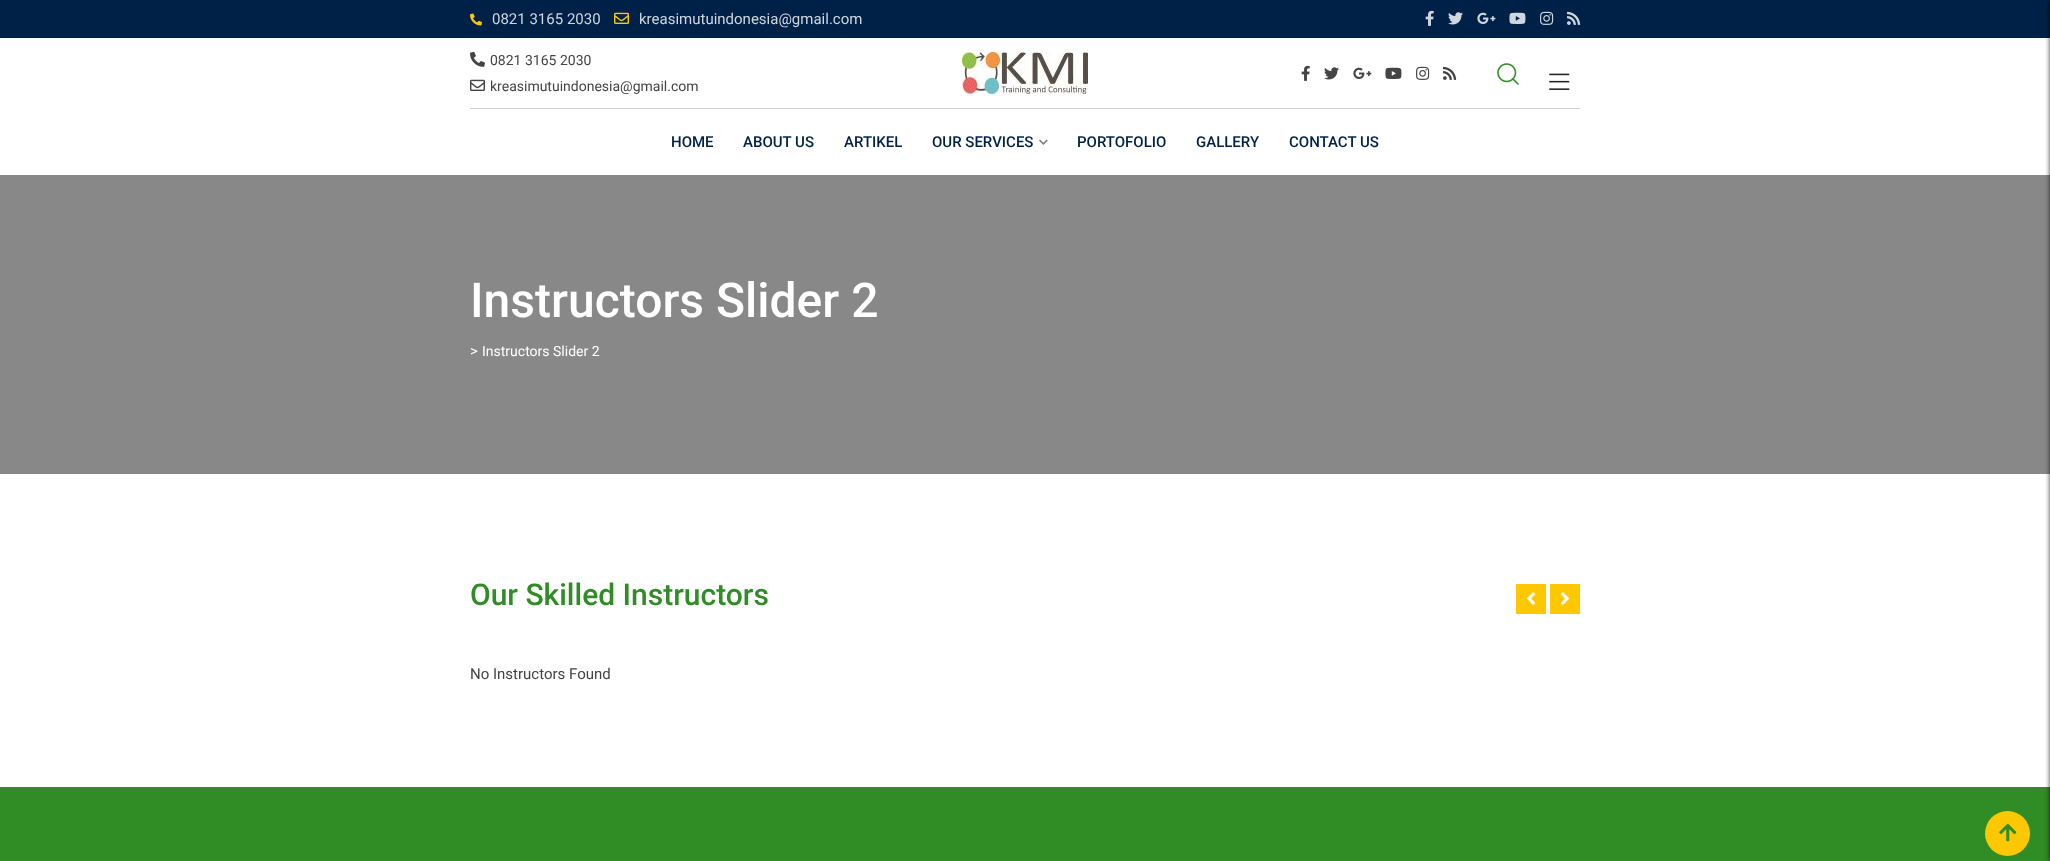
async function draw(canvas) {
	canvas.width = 2050;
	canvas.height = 861;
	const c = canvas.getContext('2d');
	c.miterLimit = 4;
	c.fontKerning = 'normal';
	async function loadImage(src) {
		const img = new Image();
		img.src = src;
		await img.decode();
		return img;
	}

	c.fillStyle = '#fff';
	c.fillRect(0, 0, 2050, 861);
	c.fillStyle = '#002147';
	c.fillRect(0, 0, 2050, 38);
	c.drawImage(await loadImage('img1.png'), 470, 13, 12, 13);
	c.font = '15px Roboto';
	c.fillStyle = '#d0d6dd';
	c.fillText('0821 3165 2030', 492, 24);
	c.drawImage(await loadImage('img2.png'), 614, 12, 15, 12);
	c.fillText('kreasimutuindonesia@gmail.com', 639, 24);
	c.drawImage(await loadImage('img3.png'), 1425, 10, 9, 16);
	c.drawImage(await loadImage('img4.png'), 1448, 12, 15, 13);
	c.drawImage(await loadImage('img5.png'), 1477, 12, 19, 12);
	c.drawImage(await loadImage('img6.png'), 1509, 12, 17, 12);
	c.drawImage(await loadImage('img7.png'), 1540, 11, 14, 14);
	c.drawImage(await loadImage('img8.png'), 1567, 11, 14, 14);
	c.drawImage(await loadImage('img9.png'), 470, 51, 15, 16);
	c.font = '14px Roboto';
	c.fillStyle = '#444';
	c.fillText('0821 3165 2030', 490, 65);
	c.drawImage(await loadImage('img10.png'), 470, 79, 15, 12);
	c.fillText('kreasimutuindonesia@gmail.com', 490, 91);
	c.drawImage(await loadImage('img11.png'), 962, 52, 126, 42);
	c.drawImage(await loadImage('img12.png'), 1301, 65, 9, 16);
	c.drawImage(await loadImage('img13.png'), 1324, 67, 15, 13);
	c.drawImage(await loadImage('img14.png'), 1353, 67, 19, 12);
	c.drawImage(await loadImage('img15.png'), 1385, 67, 17, 12);
	c.drawImage(await loadImage('img16.png'), 1416, 66, 14, 14);
	c.drawImage(await loadImage('img17.png'), 1443, 66, 14, 14);
	c.drawImage(await loadImage('img18.png'), 1497, 63, 22, 22);
	c.letterSpacing = '-1.5px';
	c.font = 'bold 22px Liberation Serif';
	c.fillStyle = '#222';
	c.save();
	c.translate(1554, 72);
	c.rotate(90 * Math.PI / 180);
	c.fillText('| | |', 0, 0);
	c.restore();
	c.save();
	c.beginPath();
	c.rect(0, 175, 2050, 299);
	c.clip();
	c.fillStyle = '#888';
	c.beginPath();
	c.moveTo(1367, -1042);
	c.lineTo(0, -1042);
	c.lineTo(0, 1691);
	c.lineTo(2050, 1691);
	c.lineTo(2050, -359);
	c.closePath();
	c.moveTo(1367, -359);
	c.lineTo(1367, -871);
	c.lineTo(1879, -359);
	c.closePath();
	c.fill();
	c.restore();
	c.fillStyle = '#308c24';
	c.fillRect(0, 787, 2050, 74);
	c.fillStyle = '#000000cc';
	c.filter = 'blur(2.5px)';
	c.beginPath();
	c.rect(2050, 0, 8, 861);
	c.fill();
	c.filter = 'none';
	c.fillStyle = '#d0d0d0';
	c.fillRect(470, 108, 1110, 1);
	c.letterSpacing = '0px';
	c.font = '500 15px Roboto';
	c.fillStyle = '#002147';
	for (const [text, x, y] of [
		['HOME', 671, 147],
		['ABOUT US', 743, 147],
		['ARTIKEL', 844, 147],
		['OUR SERVICES', 932, 147],
	]) {
		c.fillText(text, x, y);
	}
	c.drawImage(await loadImage('img19.png'), 1039, 139, 9, 6);
	for (const [text, x, y] of [
		['PORTOFOLIO', 1077, 147],
		['GALLERY', 1196, 147],
		['CONTACT US', 1289, 147],
	]) {
		c.fillText(text, x, y);
	}
	c.font = '500 48px Roboto';
	c.fillStyle = '#fff';
	c.fillText('Instructors Slider 2', 470, 317);
	c.font = '15px Roboto';
	c.fillText('>', 470, 356);
	c.font = '14px Roboto';
	c.fillText('Instructors Slider 2', 482, 356);
	c.font = '500 30px Roboto';
	c.fillStyle = '#308c24';
	c.fillText('Our Skilled Instructors', 470, 605);
	c.fillStyle = '#fdc800';
	c.fillRect(1516, 584, 30, 30);
	c.drawImage(await loadImage('img20.png'), 1527, 592, 8, 13);
	c.fillRect(1550, 584, 30, 30);
	c.drawImage(await loadImage('img21.png'), 1561, 592, 8, 13);
	c.font = '15px Roboto';
	c.fillStyle = '#444';
	c.fillText('No Instructors Found', 470, 679);
	c.fillStyle = '#fdc800';
	c.beginPath();
	c.arc(2007.5, 833.5, 22.5, 0, 2 * Math.PI);
	c.fill();
	c.drawImage(await loadImage('img22.png'), 1999, 823, 18, 19);
}

draw(document.querySelector('canvas'));
